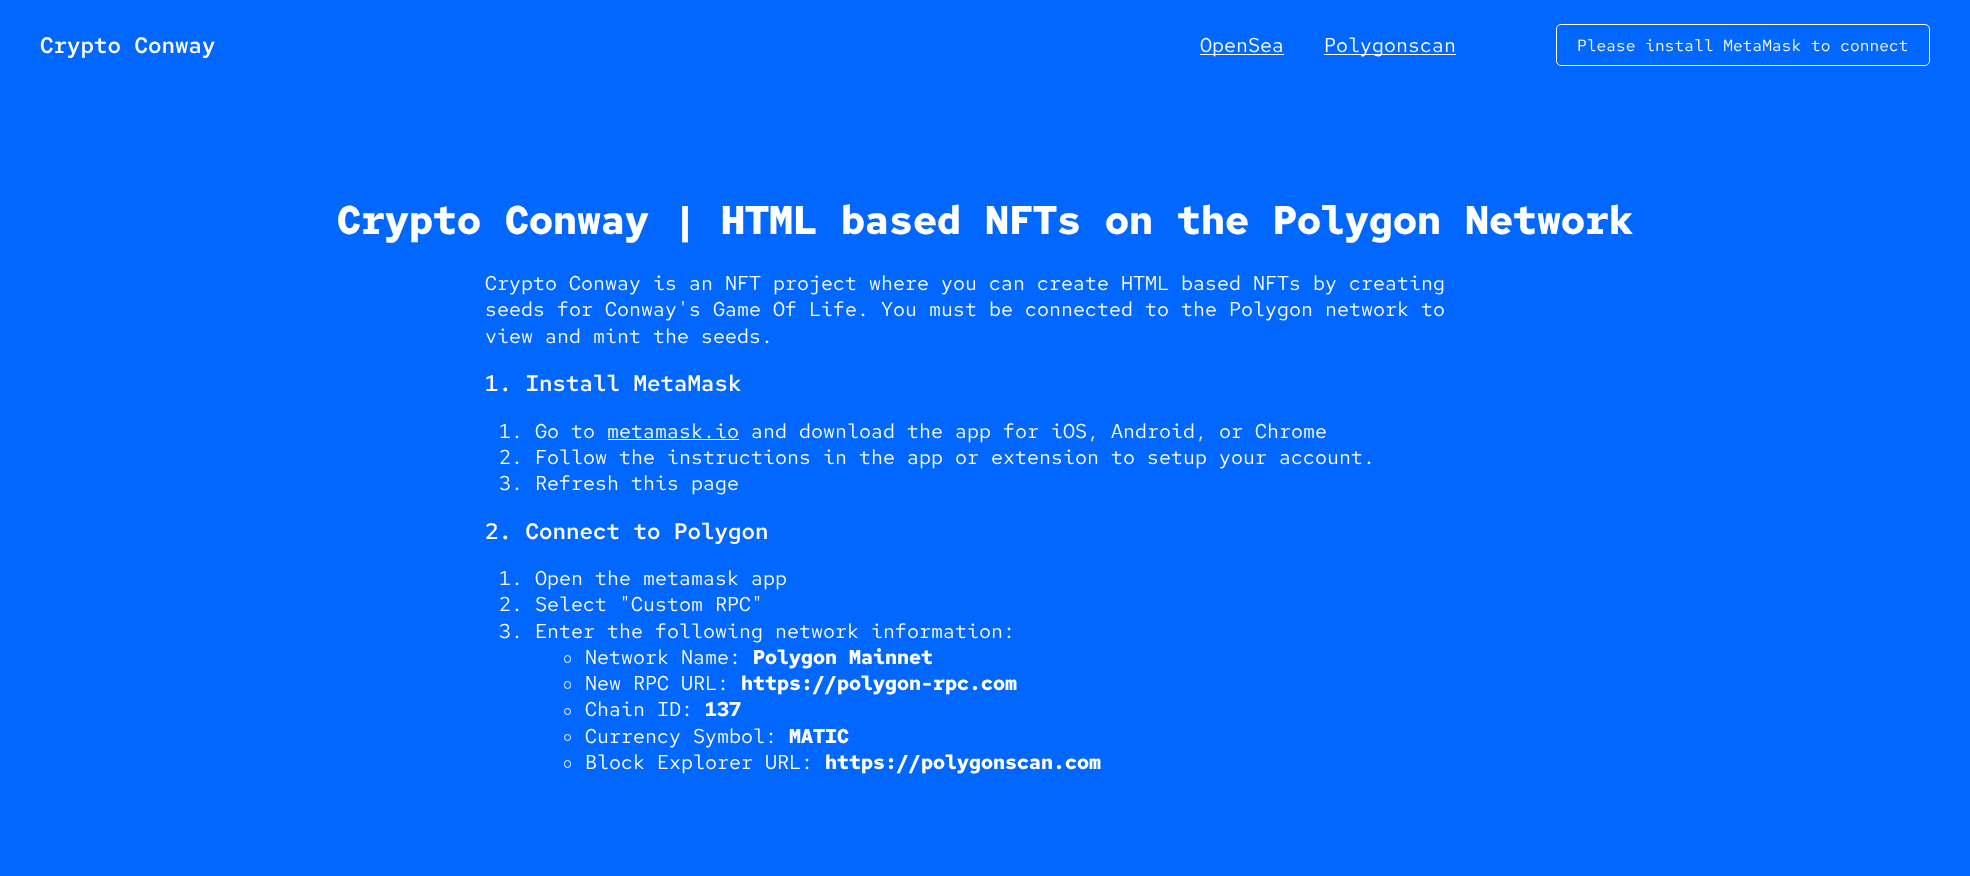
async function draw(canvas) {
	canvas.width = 1970;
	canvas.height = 876;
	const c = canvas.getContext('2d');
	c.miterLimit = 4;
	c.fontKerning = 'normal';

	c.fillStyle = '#0167ff';
	c.fillRect(0, 0, 1970, 876);
	c.font = '500 22.5px Red Hat Mono';
	c.fillStyle = '#fff';
	c.fillText('Crypto Conway', 40, 53);
	c.fillRect(1200, 54, 84, 1);
	c.font = '20px Red Hat Mono';
	c.fillText('OpenSea', 1200, 52);
	c.fillRect(1324, 54, 132, 1);
	c.fillText('Polygonscan', 1324, 52);
	c.beginPath();
	c.roundRect(1556.5, 24.5, 373, 41, 4.5);
	c.strokeStyle = '#fff';
	c.stroke();
	c.font = '16.25px Red Hat Mono';
	c.fillText('Please install MetaMask to connect', 1577, 51);
	c.font = 'bold 40px Red Hat Mono';
	c.fillText('Crypto Conway | HTML based NFTs on the Polygon Network', 337, 234);
	c.font = '20px Red Hat Mono';
	for (const [text, x, y] of [
		['Crypto Conway is an NFT project where you can create HTML based NFTs by creating', 485, 290],
		['seeds for Conway\'s Game Of Life. You must be connected to the Polygon network to', 485, 316],
		['view and mint the seeds.', 485, 343],
	]) {
		c.fillText(text, x, y);
	}
	c.font = '500 22.5px Red Hat Mono';
	c.fillText('1. Install MetaMask', 485, 391);
	c.font = '20px Red Hat Mono';
	c.fillText('1. Go to metamask.io and download the app for iOS, Android, or Chrome', 499, 438);
	c.fillRect(608, 439, 131, 1);
	c.fillText('2. Follow the instructions in the app or extension to setup your account.', 499, 464);
	c.fillText('3. Refresh this page', 499, 490);
	c.font = '500 22.5px Red Hat Mono';
	c.fillText('2. Connect to Polygon', 485, 539);
	c.font = '20px Red Hat Mono';
	for (const [text, x, y] of [
		['1. Open the metamask app', 499, 585],
		['2. Select "Custom RPC"', 499, 611],
		['3. Enter the following network information:', 499, 638],
	]) {
		c.fillText(text, x, y);
	}
	c.beginPath();
	c.roundRect(564.5, 655.5, 6, 7, 3);
	c.stroke();
	c.fillText('Network Name:', 585, 664);
	c.font = 'bold 20px Red Hat Mono';
	c.fillText('Polygon Mainnet', 753, 664);
	c.beginPath();
	c.roundRect(564.5, 681.5, 6, 7, 3);
	c.stroke();
	c.font = '20px Red Hat Mono';
	c.fillText('New RPC URL:', 585, 690);
	c.font = 'bold 20px Red Hat Mono';
	c.fillText('https://polygon-rpc.com', 741, 690);
	c.beginPath();
	c.arc(567.5, 711.5, 3, 0, 2 * Math.PI);
	c.stroke();
	c.font = '20px Red Hat Mono';
	c.fillText('Chain ID:', 585, 716);
	c.font = 'bold 20px Red Hat Mono';
	c.fillText('137', 705, 716);
	c.beginPath();
	c.arc(567.5, 737.5, 3, 0, 2 * Math.PI);
	c.stroke();
	c.font = '20px Red Hat Mono';
	c.fillText('Currency Symbol:', 585, 743);
	c.font = 'bold 20px Red Hat Mono';
	c.fillText('MATIC', 789, 743);
	c.beginPath();
	c.roundRect(564.5, 760.5, 6, 7, 3);
	c.stroke();
	c.font = '20px Red Hat Mono';
	c.fillText('Block Explorer URL:', 585, 769);
	c.font = 'bold 20px Red Hat Mono';
	c.fillText('https://polygonscan.com', 825, 769);
}

draw(document.querySelector('canvas'));
